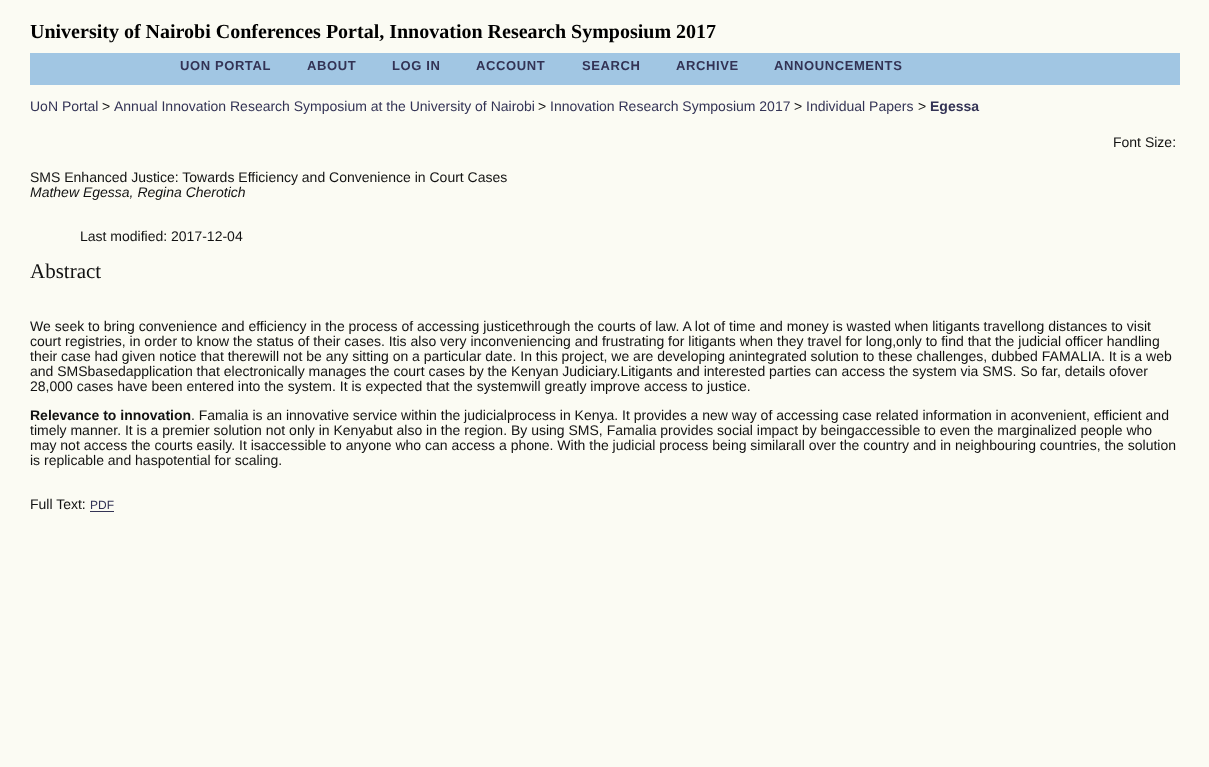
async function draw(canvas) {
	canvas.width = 1209;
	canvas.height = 767;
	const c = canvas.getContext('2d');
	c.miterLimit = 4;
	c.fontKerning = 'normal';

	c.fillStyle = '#fbfbf3';
	c.fillRect(0, 0, 1209, 767);
	c.font = 'bold 20px Liberation Serif';
	c.fillStyle = '#000';
	c.fillText('University of Nairobi Conferences Portal, Innovation Research Symposium 2017', 30, 38);
	c.fillStyle = '#a1c6e3';
	c.fillRect(30, 53, 1150, 32);
	c.letterSpacing = '0.6px';
	c.font = 'bold 13px Liberation Sans';
	c.fillStyle = '#335';
	for (const [text, x, y] of [
		['UON PORTAL', 180, 70],
		['ABOUT', 307, 70],
		['LOG IN', 392, 70],
		['ACCOUNT', 476, 70],
		['SEARCH', 582, 70],
		['ARCHIVE', 676, 70],
		['ANNOUNCEMENTS', 774, 70],
	]) {
		c.fillText(text, x, y);
	}
	c.letterSpacing = '0px';
	c.font = '14px Liberation Sans';
	c.fillText('UoN Portal', 30, 111);
	c.fillStyle = '#111';
	c.fillText('>', 102, 111);
	c.fillStyle = '#335';
	c.fillText('Annual Innovation Research Symposium at the University of Nairobi', 114, 111);
	c.fillStyle = '#111';
	c.fillText('>', 538, 111);
	c.fillStyle = '#335';
	c.fillText('Innovation Research Symposium 2017', 550, 111);
	c.fillStyle = '#111';
	c.fillText('>', 794, 111);
	c.fillStyle = '#335';
	c.fillText('Individual Papers', 806, 111);
	c.fillStyle = '#111';
	c.fillText('>', 918, 111);
	c.font = 'bold 14px Liberation Sans';
	c.fillStyle = '#335';
	c.fillText('Egessa', 930, 111);
	c.font = '14px Liberation Sans';
	c.fillStyle = '#111';
	c.fillText('Font Size:', 1113, 147);
	c.fillText('SMS Enhanced Justice: Towards Efficiency and Convenience in Court Cases', 30, 182);
	c.font = 'italic 14px Liberation Sans';
	c.fillText('Mathew Egessa, Regina Cherotich', 30, 197);
	c.font = '14px Liberation Sans';
	c.fillText('Last modified: 2017-12-04', 80, 241);
	c.font = '21px Liberation Serif';
	c.fillText('Abstract', 30, 278);
	c.font = '14px Liberation Sans';
	for (const [text, x, y] of [
		['We seek to bring convenience and efficiency in the process of accessing justicethrough the courts of law. A lot of time and money is wasted when litigants travellong distances to visit', 30, 331],
		['court registries, in order to know the status of their cases. Itis also very inconveniencing and frustrating for litigants when they travel for long,only to find that the judicial officer handling', 30, 346],
		['their case had given notice that therewill not be any sitting on a particular date. In this project, we are developing anintegrated solution to these challenges, dubbed FAMALIA. It is a web', 30, 361],
		['and SMSbasedapplication that electronically manages the court cases by the Kenyan Judiciary.Litigants and interested parties can access the system via SMS. So far, details ofover', 30, 376],
		['28,000 cases have been entered into the system. It is expected that the systemwill greatly improve access to justice.', 30, 391],
	]) {
		c.fillText(text, x, y);
	}
	c.font = 'bold 14px Liberation Sans';
	c.fillText('Relevance to innovation', 30, 420);
	c.font = '14px Liberation Sans';
	for (const [text, x, y] of [
		['. Famalia is an innovative service within the judicialprocess in Kenya. It provides a new way of accessing case related information in aconvenient, efficient and', 191, 420],
		['timely manner. It is a premier solution not only in Kenyabut also in the region. By using SMS, Famalia provides social impact by beingaccessible to even the marginalized people who', 30, 435],
		['may not access the courts easily. It isaccessible to anyone who can access a phone. With the judicial process being similarall over the country and in neighbouring countries, the solution', 30, 450],
		['is replicable and haspotential for scaling.', 30, 465],
		['Full Text:', 30, 509],
	]) {
		c.fillText(text, x, y);
	}
	c.font = '12px Liberation Sans';
	c.fillStyle = '#335';
	c.fillText('PDF', 90, 509);
	c.fillRect(90, 511, 24, 1);
}

draw(document.querySelector('canvas'));
